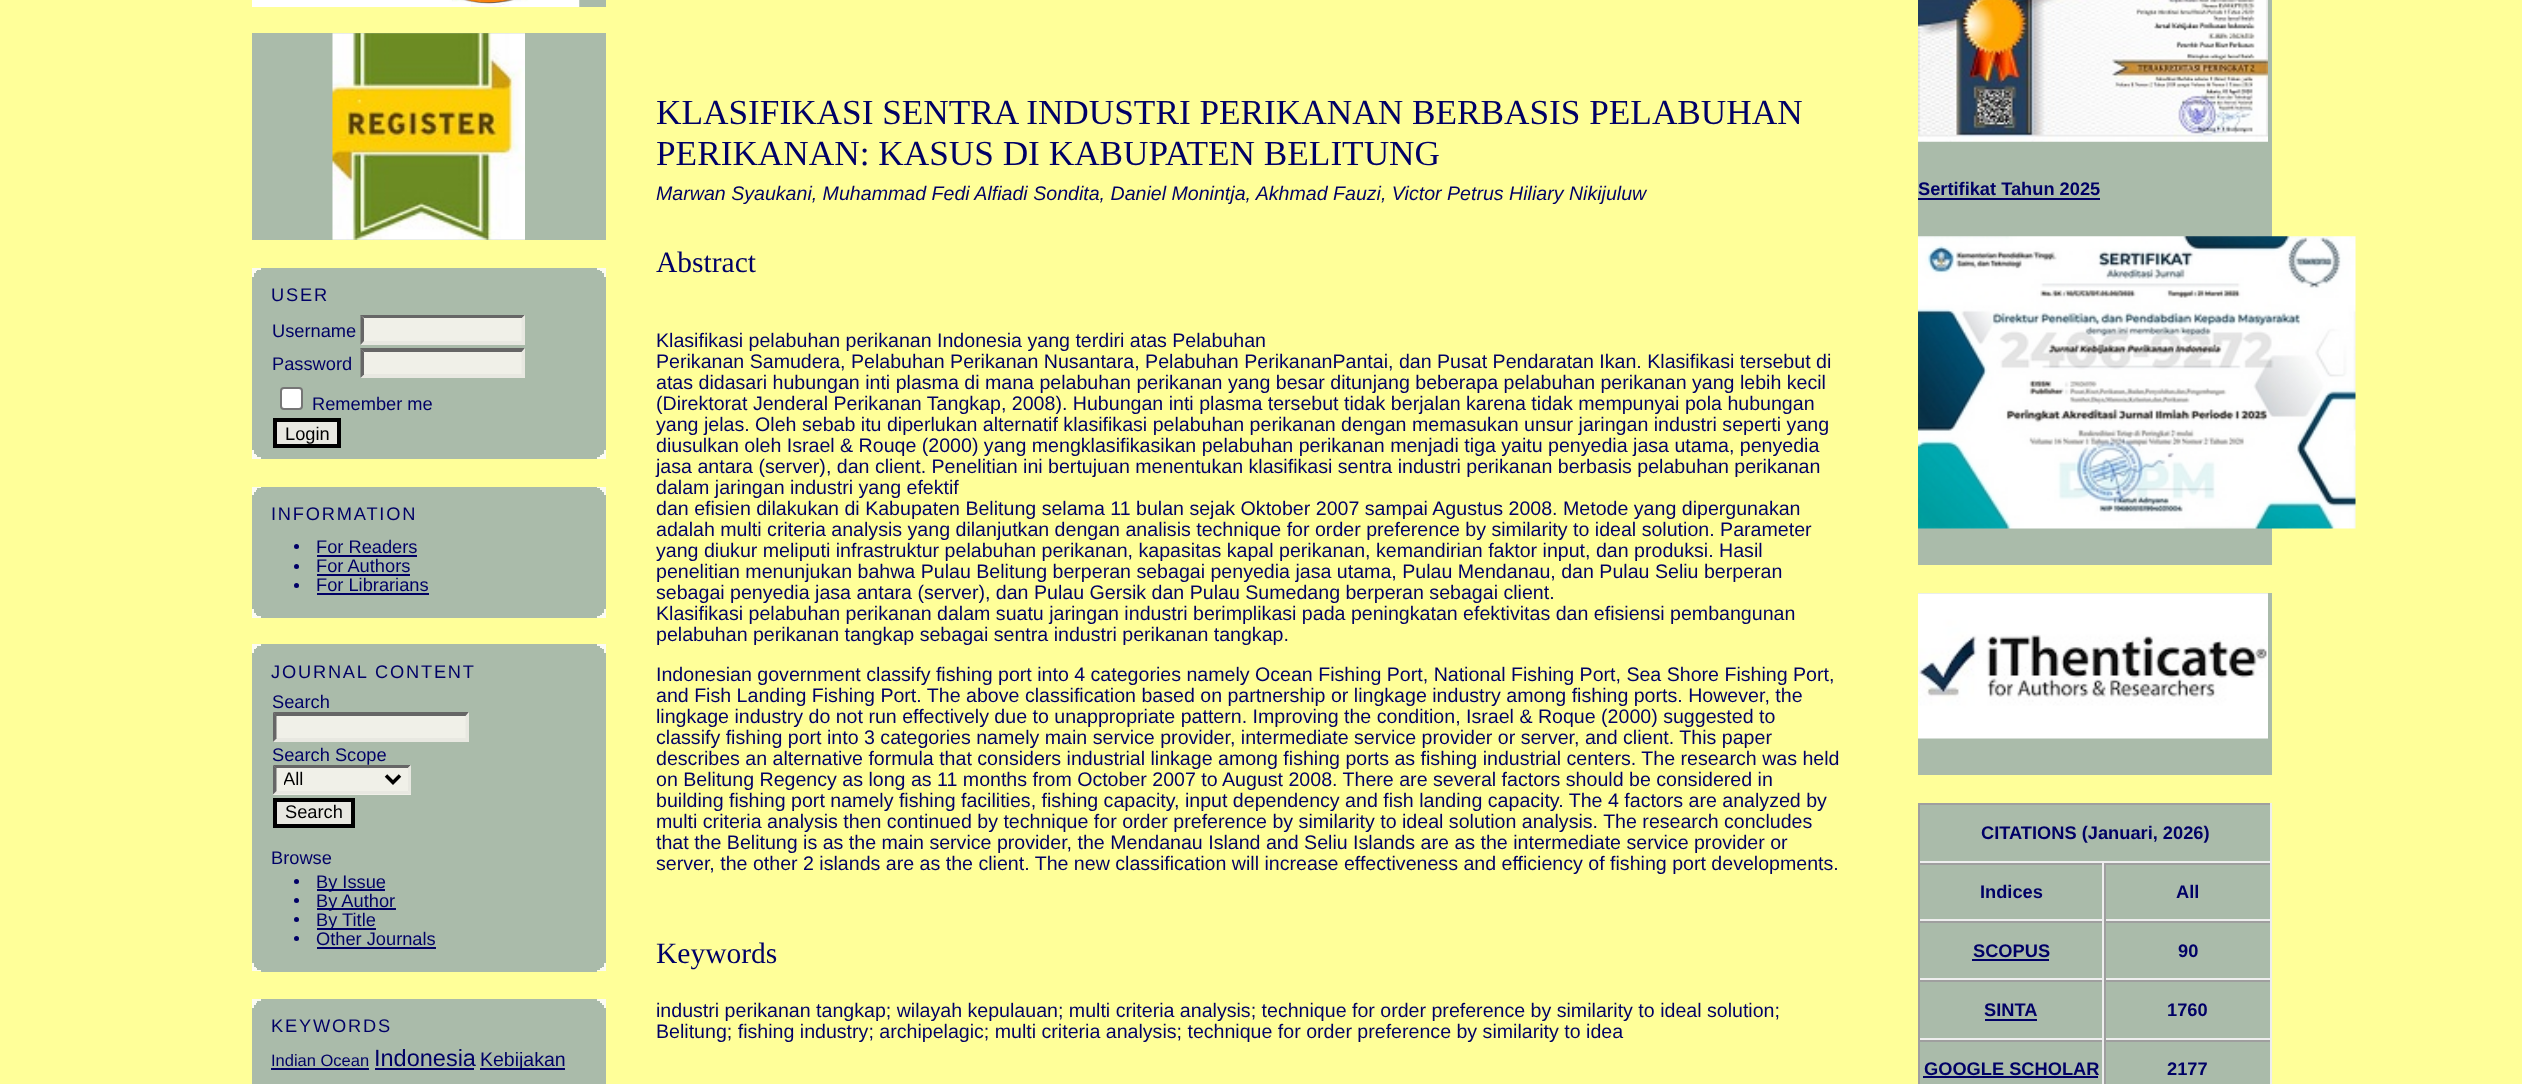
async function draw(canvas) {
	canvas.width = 2522;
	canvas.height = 1084;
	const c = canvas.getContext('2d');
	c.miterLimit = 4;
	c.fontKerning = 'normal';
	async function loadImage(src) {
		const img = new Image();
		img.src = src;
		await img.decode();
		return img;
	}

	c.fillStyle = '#ff9';
	c.fillRect(0, 0, 2522, 1084);
	c.font = '35.25px Liberation Serif';
	c.fillStyle = '#006';
	c.fillText('KLASIFIKASI SENTRA INDUSTRI PERIKANAN BERBASIS PELABUHAN', 656, 124);
	c.fillText('PERIKANAN: KASUS DI KABUPATEN BELITUNG', 656, 165);
	c.font = 'italic 19.6px Liberation Sans';
	c.fillText('Marwan Syaukani, Muhammad Fedi Alfiadi Sondita, Daniel Monintja, Akhmad Fauzi, Victor Petrus Hiliary Nikijuluw', 656, 200);
	c.font = '29.5px Liberation Serif';
	c.fillText('Abstract', 656, 272);
	c.font = '19.6px Liberation Sans';
	for (const [text, x, y] of [
		['Klasifikasi pelabuhan perikanan Indonesia yang terdiri atas Pelabuhan', 656, 347],
		['Perikanan Samudera, Pelabuhan Perikanan Nusantara, Pelabuhan PerikananPantai, dan Pusat Pendaratan Ikan. Klasifikasi tersebut di', 656, 368],
		['atas didasari hubungan inti plasma di mana pelabuhan perikanan yang besar ditunjang beberapa pelabuhan perikanan yang lebih kecil', 656, 389],
		['(Direktorat Jenderal Perikanan Tangkap, 2008). Hubungan inti plasma tersebut tidak berjalan karena tidak mempunyai pola hubungan', 656, 410],
		['yang jelas. Oleh sebab itu diperlukan alternatif klasifikasi pelabuhan perikanan dengan memasukan unsur jaringan industri seperti yang', 656, 431],
		['diusulkan oleh Israel & Rouqe (2000) yang mengklasifikasikan pelabuhan perikanan menjadi tiga yaitu penyedia jasa utama, penyedia', 656, 452],
		['jasa antara (server), dan client. Penelitian ini bertujuan menentukan klasifikasi sentra industri perikanan berbasis pelabuhan perikanan', 656, 473],
		['dalam jaringan industri yang efektif', 656, 494],
		['dan efisien dilakukan di Kabupaten Belitung selama 11 bulan sejak Oktober 2007 sampai Agustus 2008. Metode yang dipergunakan', 656, 515],
		['adalah multi criteria analysis yang dilanjutkan dengan analisis technique for order preference by similarity to ideal solution. Parameter', 656, 536],
		['yang diukur meliputi infrastruktur pelabuhan perikanan, kapasitas kapal perikanan, kemandirian faktor input, dan produksi. Hasil', 656, 557],
		['penelitian menunjukan bahwa Pulau Belitung berperan sebagai penyedia jasa utama, Pulau Mendanau, dan Pulau Seliu berperan', 656, 578],
		['sebagai penyedia jasa antara (server), dan Pulau Gersik dan Pulau Sumedang berperan sebagai client.', 656, 599],
		['Klasifikasi pelabuhan perikanan dalam suatu jaringan industri berimplikasi pada peningkatan efektivitas dan efisiensi pembangunan', 656, 620],
		['pelabuhan perikanan tangkap sebagai sentra industri perikanan tangkap.', 656, 641],
		['Indonesian government classify fishing port into 4 categories namely Ocean Fishing Port, National Fishing Port, Sea Shore Fishing Port,', 656, 681],
		['and Fish Landing Fishing Port. The above classification based on partnership or lingkage industry among fishing ports. However, the', 656, 702],
		['lingkage industry do not run effectively due to unappropriate pattern. Improving the condition, Israel & Roque (2000) suggested to', 656, 723],
		['classify fishing port into 3 categories namely main service provider, intermediate service provider or server, and client. This paper', 656, 744],
		['describes an alternative formula that considers industrial linkage among fishing ports as fishing industrial centers. The research was held', 656, 765],
		['on Belitung Regency as long as 11 months from October 2007 to August 2008. There are several factors should be considered in', 656, 786],
		['building fishing port namely fishing facilities, fishing capacity, input dependency and fish landing capacity. The 4 factors are analyzed by', 656, 807],
		['multi criteria analysis then continued by technique for order preference by similarity to ideal solution analysis. The research concludes', 656, 828],
		['that the Belitung is as the main service provider, the Mendanau Island and Seliu Islands are as the intermediate service provider or', 656, 849],
		['server, the other 2 islands are as the client. The new classification will increase effectiveness and efficiency of fishing port developments.', 656, 870],
	]) {
		c.fillText(text, x, y);
	}
	c.font = '29.5px Liberation Serif';
	c.fillText('Keywords', 656, 963);
	c.font = '19.6px Liberation Sans';
	c.fillText('industri perikanan tangkap; wilayah kepulauan; multi criteria analysis; technique for order preference by similarity to ideal solution;', 656, 1017);
	c.fillText('Belitung; fishing industry; archipelagic; multi criteria analysis; technique for order preference by similarity to idea', 656, 1038);
	c.fillStyle = '#aba';
	c.fillRect(579, 0, 27, 7);
	c.drawImage(await loadImage('img1.png'), 252, 0, 328, 7);
	c.fillRect(252, 33, 354, 207);
	c.drawImage(await loadImage('img2.png'), 332, 33, 193, 207);
	for (const [x, y, w, h, color] of [
		[252, 277, 354, 173, '#aba'],
		[252, 268, 354, 9, '#fbfbf3'],
		[261, 268, 336, 2, '#aba'],
		[257, 270, 343, 1, '#aba'],
		[256, 271, 346, 2, '#aba'],
		[254, 273, 350, 4, '#aba'],
	]) {
		c.fillStyle = color;
		c.fillRect(x, y, w, h);
	}
	c.letterSpacing = '1.8px';
	c.font = '18.25px Liberation Sans';
	c.fillStyle = '#006';
	c.fillText('USER', 271, 301);
	c.letterSpacing = '0px';
	c.fillText('Username', 272, 337);
	c.fillStyle = '#f0f0e8';
	c.fillRect(361, 315, 164, 30);
	c.fillStyle = '#666';
	c.beginPath();
	c.moveTo(360, 315);
	c.lineTo(525, 315);
	c.lineTo(522, 318);
	c.lineTo(364, 318);
	c.closePath();
	c.fill();
	c.fillStyle = '#e8e8e1';
	c.beginPath();
	c.moveTo(525, 315);
	c.lineTo(525, 345);
	c.lineTo(521.5, 341);
	c.lineTo(521.5, 318.5);
	c.closePath();
	c.fill();
	c.beginPath();
	c.moveTo(525, 345);
	c.lineTo(360, 345);
	c.lineTo(364, 341);
	c.lineTo(522, 341);
	c.closePath();
	c.fill();
	c.fillStyle = '#666';
	c.beginPath();
	c.moveTo(360.5, 345);
	c.lineTo(360.5, 315);
	c.lineTo(364, 318.5);
	c.lineTo(364, 341);
	c.closePath();
	c.fill();
	c.fillStyle = '#006';
	c.fillText('Password', 272, 370);
	c.fillStyle = '#f0f0e8';
	c.fillRect(361, 348, 164, 30);
	c.fillStyle = '#666';
	c.beginPath();
	c.moveTo(360, 348);
	c.lineTo(525, 348);
	c.lineTo(522, 352);
	c.lineTo(364, 352);
	c.closePath();
	c.fill();
	c.fillStyle = '#e8e8e1';
	c.beginPath();
	c.moveTo(525, 348);
	c.lineTo(525, 378);
	c.lineTo(521.5, 374.5);
	c.lineTo(521.5, 352);
	c.closePath();
	c.fill();
	c.beginPath();
	c.moveTo(525, 378);
	c.lineTo(360, 378);
	c.lineTo(364, 374);
	c.lineTo(522, 374);
	c.closePath();
	c.fill();
	c.fillStyle = '#666';
	c.beginPath();
	c.moveTo(360.5, 378);
	c.lineTo(360.5, 348);
	c.lineTo(364, 352);
	c.lineTo(364, 374.5);
	c.closePath();
	c.fill();
	c.fillStyle = '#fff';
	c.beginPath();
	c.roundRect(281, 388, 21, 21, 3);
	c.fill();
	c.strokeStyle = '#767676';
	c.lineWidth = 2;
	c.stroke();
	c.fillStyle = '#006';
	c.fillText('Remember me', 312, 410);
	c.fillStyle = '#e8e8e1';
	c.beginPath();
	c.rect(275, 420, 64, 26);
	c.fill();
	c.strokeStyle = '#000';
	c.lineWidth = 4;
	c.stroke();
	c.fillStyle = '#000';
	c.fillText('Login', 285, 440);
	for (const [x, y, w, h, color] of [
		[252, 450, 354, 9, '#fbfbf3'],
		[254, 450, 350, 4, '#aba'],
		[256, 454, 346, 1, '#aba'],
		[257, 455, 343, 2, '#aba'],
		[261, 457, 336, 2, '#aba'],
		[252, 495, 354, 114, '#aba'],
		[252, 487, 354, 8, '#fbfbf3'],
		[261, 487, 336, 1, '#aba'],
		[257, 488, 343, 2, '#aba'],
		[256, 490, 346, 2, '#aba'],
		[254, 492, 350, 3, '#aba'],
	]) {
		c.fillStyle = color;
		c.fillRect(x, y, w, h);
	}
	c.letterSpacing = '1.8px';
	c.fillStyle = '#006';
	c.fillText('INFORMATION', 271, 520);
	c.beginPath();
	c.arc(296.5, 546.5, 2.5, 0, 2 * Math.PI);
	c.fill();
	c.letterSpacing = '0px';
	c.fillText('For Readers', 316, 553);
	c.fillRect(317, 555, 100, 2);
	c.beginPath();
	c.arc(296.5, 566.5, 2.5, 0, 2 * Math.PI);
	c.fill();
	c.fillText('For Authors', 316, 572);
	c.fillRect(317, 574, 93, 2);
	c.beginPath();
	c.arc(296.5, 585.5, 2.5, 0, 2 * Math.PI);
	c.fill();
	c.fillText('For Librarians', 316, 591);
	for (const [x, y, w, h, color] of [
		[317, 593, 112, 2, '#006'],
		[252, 609, 354, 9, '#fbfbf3'],
		[254, 609, 350, 4, '#aba'],
		[256, 613, 346, 2, '#aba'],
		[257, 615, 343, 1, '#aba'],
		[261, 616, 336, 2, '#aba'],
		[252, 653, 354, 310, '#aba'],
		[252, 644, 354, 9, '#fbfbf3'],
		[261, 644, 336, 2, '#aba'],
		[257, 646, 343, 2, '#aba'],
		[256, 648, 346, 1, '#aba'],
		[254, 649, 350, 4, '#aba'],
	]) {
		c.fillStyle = color;
		c.fillRect(x, y, w, h);
	}
	c.letterSpacing = '1.8px';
	c.fillStyle = '#006';
	c.fillText('JOURNAL CONTENT', 271, 678);
	c.letterSpacing = '0px';
	c.fillText('Search', 272, 708);
	c.fillStyle = '#f0f0e8';
	c.fillRect(273, 712, 196, 30);
	c.fillStyle = '#666';
	c.beginPath();
	c.moveTo(273, 712);
	c.lineTo(469, 712);
	c.lineTo(466, 716);
	c.lineTo(276, 716);
	c.closePath();
	c.fill();
	c.fillStyle = '#e8e8e1';
	c.beginPath();
	c.moveTo(469, 712);
	c.lineTo(469, 742);
	c.lineTo(465.5, 738.5);
	c.lineTo(465.5, 716);
	c.closePath();
	c.fill();
	c.beginPath();
	c.moveTo(469, 742);
	c.lineTo(273, 742);
	c.lineTo(276, 738);
	c.lineTo(466, 738);
	c.closePath();
	c.fill();
	c.fillStyle = '#666';
	c.beginPath();
	c.moveTo(273, 742);
	c.lineTo(273, 712);
	c.lineTo(276.5, 716);
	c.lineTo(276.5, 738.5);
	c.closePath();
	c.fill();
	c.fillStyle = '#006';
	c.fillText('Search Scope', 272, 761);
	c.fillStyle = '#f0f0e8';
	c.fillRect(273, 765, 138, 30);
	c.fillStyle = '#666';
	c.beginPath();
	c.moveTo(273, 765);
	c.lineTo(411, 765);
	c.lineTo(408, 768);
	c.lineTo(276, 768);
	c.closePath();
	c.fill();
	c.fillStyle = '#e8e8e1';
	c.beginPath();
	c.moveTo(411, 765);
	c.lineTo(411, 794.5);
	c.lineTo(408, 791);
	c.lineTo(408, 768);
	c.closePath();
	c.fill();
	c.beginPath();
	c.moveTo(411, 794);
	c.lineTo(273, 794);
	c.lineTo(276, 791);
	c.lineTo(408, 791);
	c.closePath();
	c.fill();
	c.fillStyle = '#666';
	c.beginPath();
	c.moveTo(273, 794.5);
	c.lineTo(273, 765);
	c.lineTo(276.5, 768);
	c.lineTo(276.5, 791);
	c.closePath();
	c.fill();
	c.beginPath();
	c.moveTo(386, 775.5);
	c.lineTo(393, 782.5);
	c.lineTo(400, 775.5);
	c.lineWidth = 3.5;
	c.stroke();
	c.save();
	c.beginPath();
	c.rect(284, 768, 96, 23);
	c.clip();
	c.fillStyle = '#000';
	c.fillText('All', 283, 785);
	c.restore();
	c.fillStyle = '#e8e8e1';
	c.beginPath();
	c.rect(275, 800, 78, 26);
	c.fill();
	c.lineWidth = 4;
	c.stroke();
	c.fillStyle = '#000';
	c.fillText('Search', 285, 818);
	c.fillStyle = '#006';
	c.fillText('Browse', 271, 864);
	c.beginPath();
	c.arc(296.5, 881.5, 2.5, 0, 2 * Math.PI);
	c.fill();
	c.fillRect(317, 889, 68, 2);
	c.fillText('By Issue', 316, 888);
	c.beginPath();
	c.arc(296.5, 900.5, 2.5, 0, 2 * Math.PI);
	c.fill();
	c.fillRect(317, 908, 79, 2);
	c.fillText('By Author', 316, 907);
	c.beginPath();
	c.arc(296.5, 919.5, 2.5, 0, 2 * Math.PI);
	c.fill();
	c.fillRect(317, 928, 59, 2);
	c.fillText('By Title', 316, 926);
	c.beginPath();
	c.arc(296.5, 938.5, 2.5, 0, 2 * Math.PI);
	c.fill();
	c.fillText('Other Journals', 316, 945);
	for (const [x, y, w, h, color] of [
		[317, 947, 119, 2, '#006'],
		[252, 963, 354, 8, '#fbfbf3'],
		[254, 963, 350, 4, '#aba'],
		[256, 967, 346, 1, '#aba'],
		[257, 968, 343, 2, '#aba'],
		[261, 970, 336, 2, '#aba'],
		[252, 1008, 354, 76, '#aba'],
		[252, 999, 354, 9, '#fbfbf3'],
		[261, 999, 336, 2, '#aba'],
		[257, 1001, 343, 2, '#aba'],
		[256, 1003, 346, 2, '#aba'],
		[254, 1005, 350, 3, '#aba'],
	]) {
		c.fillStyle = color;
		c.fillRect(x, y, w, h);
	}
	c.letterSpacing = '1.8px';
	c.fillStyle = '#006';
	c.fillText('KEYWORDS', 271, 1032);
	c.letterSpacing = '0px';
	c.font = '16.5px Liberation Sans';
	c.fillText('Indian Ocean', 271, 1066);
	c.fillRect(271, 1068, 98, 2);
	c.font = '23.5px Liberation Sans';
	c.fillText('Indonesia', 374, 1066);
	c.fillRect(375, 1068, 99, 2);
	c.fillRect(480, 1068, 85, 2);
	c.font = '19.5px Liberation Sans';
	c.fillText('Kebijakan', 480, 1066);
	c.fillStyle = '#aba';
	c.fillRect(1918, 0, 354, 565);
	c.drawImage(await loadImage('img3.png'), 1918, 0, 350, 142);
	c.font = 'bold 18.25px Liberation Sans';
	c.fillStyle = '#006';
	c.fillText('Sertifikat Tahun 2025', 1918, 195);
	c.fillRect(1918, 198, 182, 2);
	c.drawImage(await loadImage('img4.png'), 1918, 236, 438, 293);
	c.fillStyle = '#aba';
	c.fillRect(1918, 593, 354, 182);
	c.drawImage(await loadImage('img5.png'), 1918, 593, 350, 146);
	for (const [x, y, w, h, color] of [
		[1920, 805, 350, 279, '#aba'],
		[1918, 803, 354, 2, '#9f9f9f'],
		[2270, 803, 2, 60, '#eee'],
		[1918, 861, 354, 2, '#eee'],
		[1918, 803, 2, 60, '#9f9f9f'],
	]) {
		c.fillStyle = color;
		c.fillRect(x, y, w, h);
	}
	c.fillStyle = '#006';
	c.fillText('CITATIONS (Januari, 2026)', 1981, 839);
	for (const [x, y, w, h, color] of [
		[1918, 863, 354, 2, '#9f9f9f'],
		[2102, 863, 2, 58, '#eee'],
		[1918, 919, 186, 2, '#eee'],
		[1918, 863, 2, 58, '#9f9f9f'],
	]) {
		c.fillStyle = color;
		c.fillRect(x, y, w, h);
	}
	c.fillStyle = '#006';
	c.fillText('Indices', 1980, 898);
	for (const [x, y, w, h, color] of [
		[2270, 863, 2, 58, '#eee'],
		[2104, 919, 168, 2, '#eee'],
		[2104, 863, 2, 58, '#9f9f9f'],
	]) {
		c.fillStyle = color;
		c.fillRect(x, y, w, h);
	}
	c.fillStyle = '#006';
	c.fillText('All', 2176, 898);
	for (const [x, y, w, h, color] of [
		[1918, 921, 354, 2, '#9f9f9f'],
		[2102, 921, 2, 59, '#eee'],
		[1918, 978, 186, 2, '#eee'],
		[1918, 921, 2, 59, '#9f9f9f'],
	]) {
		c.fillStyle = color;
		c.fillRect(x, y, w, h);
	}
	c.fillStyle = '#006';
	c.fillText('SCOPUS', 1973, 957);
	for (const [x, y, w, h, color] of [
		[1972, 959, 77, 2, '#006'],
		[2270, 921, 2, 59, '#eee'],
		[2104, 978, 168, 2, '#eee'],
		[2104, 921, 2, 59, '#9f9f9f'],
	]) {
		c.fillStyle = color;
		c.fillRect(x, y, w, h);
	}
	c.fillStyle = '#006';
	c.fillText('90', 2178, 957);
	for (const [x, y, w, h, color] of [
		[1918, 980, 354, 2, '#9f9f9f'],
		[2102, 980, 2, 60, '#eee'],
		[1918, 1038, 186, 2, '#eee'],
		[1918, 980, 2, 60, '#9f9f9f'],
	]) {
		c.fillStyle = color;
		c.fillRect(x, y, w, h);
	}
	c.fillStyle = '#006';
	c.fillText('SINTA', 1984, 1016);
	for (const [x, y, w, h, color] of [
		[1985, 1019, 52, 2, '#006'],
		[2270, 980, 2, 60, '#eee'],
		[2104, 1038, 168, 2, '#eee'],
		[2104, 980, 2, 60, '#9f9f9f'],
	]) {
		c.fillStyle = color;
		c.fillRect(x, y, w, h);
	}
	c.fillStyle = '#006';
	c.fillText('1760', 2167, 1016);
	for (const [x, y, w, h, color] of [
		[1918, 1040, 354, 2, '#9f9f9f'],
		[2102, 1040, 2, 44, '#eee'],
		[1918, 1040, 2, 44, '#9f9f9f'],
	]) {
		c.fillStyle = color;
		c.fillRect(x, y, w, h);
	}
	c.fillStyle = '#006';
	c.fillText('GOOGLE SCHOLAR', 1924, 1075);
	for (const [x, y, w, h, color] of [
		[1923, 1076, 175, 2, '#006'],
		[2270, 1040, 2, 44, '#eee'],
		[2104, 1040, 2, 44, '#9f9f9f'],
	]) {
		c.fillStyle = color;
		c.fillRect(x, y, w, h);
	}
	c.fillStyle = '#006';
	c.fillText('2177', 2167, 1075);
}

draw(document.querySelector('canvas'));
